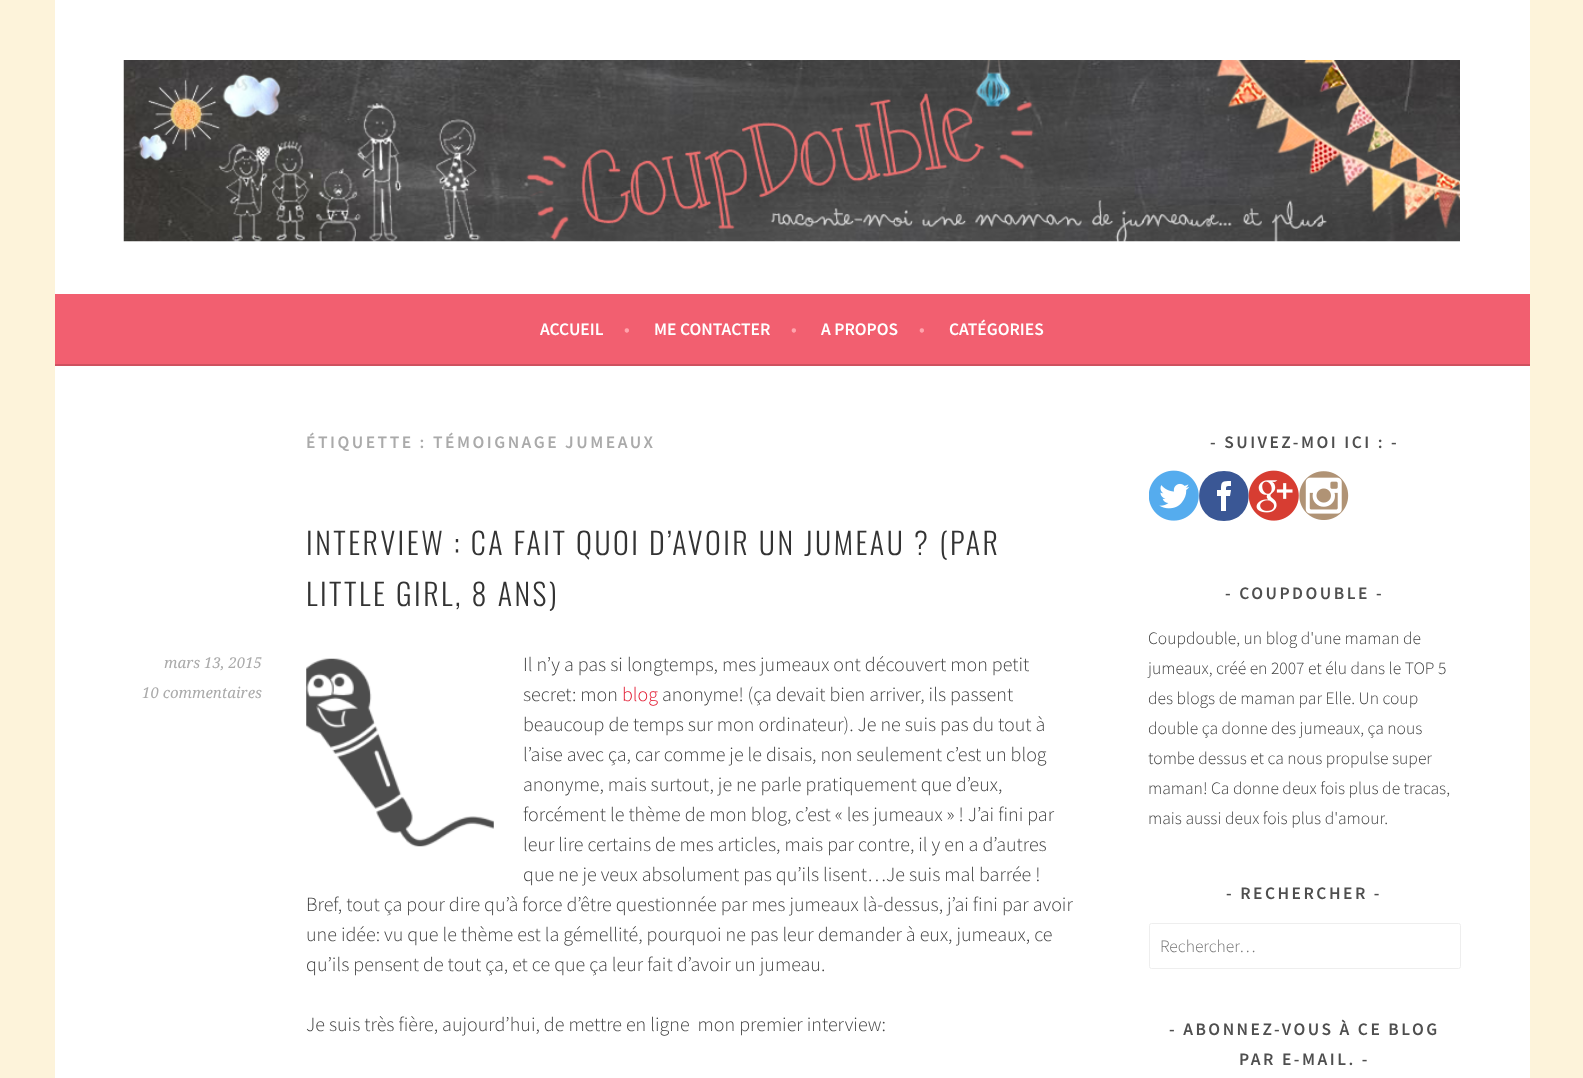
async function draw(canvas) {
	canvas.width = 1583;
	canvas.height = 1078;
	const c = canvas.getContext('2d');
	c.miterLimit = 4;
	c.fontKerning = 'normal';
	async function loadImage(src) {
		const img = new Image();
		img.src = src;
		await img.decode();
		return img;
	}

	c.fillStyle = '#fdf3da';
	c.fillRect(0, 0, 1583, 1078);
	c.fillStyle = '#fff';
	c.fillRect(55, 0, 1475, 294);
	c.drawImage(await loadImage('img1.png'), 123, 60, 1337, 182);
	c.fillStyle = '#f25f70';
	c.fillRect(55, 294, 1475, 70);
	c.fillStyle = '#ce515f';
	c.fillRect(55, 364, 1475, 2);
	c.font = '600 17.5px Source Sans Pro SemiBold';
	c.fillStyle = '#fff';
	c.fillText('ACCUEIL', 540, 335);
	c.fillStyle = '#ffa4ad';
	c.fillText('•', 624, 335);
	c.fillStyle = '#fff';
	c.fillText('ME CONTACTER', 654, 335);
	c.fillStyle = '#ffa4ad';
	c.fillText('•', 791, 335);
	c.fillStyle = '#fff';
	c.fillText('A PROPOS', 821, 335);
	c.fillStyle = '#ffa4ad';
	c.fillText('•', 919, 335);
	c.fillStyle = '#fff';
	c.fillText('CATÉGORIES', 949, 335);
	c.fillRect(55, 366, 1475, 712);
	c.letterSpacing = '2.5px';
	c.fillStyle = '#aaa';
	c.fillText('ÉTIQUETTE : TÉMOIGNAGE JUMEAUX', 306, 448);
	c.font = '300 30px Oswald';
	c.fillStyle = '#333';
	c.fillText('INTERVIEW : CA FAIT QUOI D’AVOIR UN JUMEAU ? (PAR', 306, 555);
	c.fillText('LITTLE GIRL, 8 ANS)', 306, 606);
	c.letterSpacing = '0px';
	c.font = 'italic 15px Droid Serif';
	c.fillStyle = '#aaa';
	c.fillText('mars 13, 2015', 164, 668);
	c.fillText('10 commentaires', 142, 698);
	c.drawImage(await loadImage('img2.png'), 306, 658, 188, 189);
	c.font = '300 20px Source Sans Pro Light';
	c.fillStyle = '#404040';
	c.fillText('Il n’y a pas si longtemps, mes jumeaux ont découvert mon petit', 523, 671);
	c.fillText('secret: mon', 523, 701);
	c.fillStyle = '#e1122a';
	c.fillText('blog', 622, 701);
	c.fillStyle = '#404040';
	for (const [text, x, y] of [
		['anonyme! (ça devait bien arriver, ils passent', 662, 701],
		['beaucoup de temps sur mon ordinateur). Je ne suis pas du tout à', 523, 731],
		['l’aise avec ça, car comme je le disais, non seulement c’est un blog', 523, 761],
		['anonyme, mais surtout, je ne parle pratiquement que d’eux,', 523, 791],
		['forcément le thème de mon blog, c’est « les jumeaux » ! J’ai fini par', 523, 821],
		['leur lire certains de mes articles, mais par contre, il y en a d’autres', 523, 851],
		['que ne je veux absolument pas qu’ils lisent…Je suis mal barrée !', 523, 881],
		['Bref, tout ça pour dire qu’à force d’être questionnée par mes jumeaux là-dessus, j’ai fini par avoir', 306, 911],
		['une idée: vu que le thème est la gémellité, pourquoi ne pas leur demander à eux, jumeaux, ce', 306, 941],
		['qu’ils pensent de tout ça, et ce que ça leur fait d’avoir un jumeau.', 306, 971],
		['Je suis très fière, aujourd’hui, de mettre en ligne  mon premier interview:', 306, 1031],
	]) {
		c.fillText(text, x, y);
	}
	c.letterSpacing = '2.5px';
	c.font = '600 17.5px Source Sans Pro SemiBold';
	c.fillStyle = '#4f4f4f';
	c.fillText('- SUIVEZ-MOI ICI : -', 1210, 448);
	c.drawImage(await loadImage('img3.png'), 1149, 470, 50, 51);
	c.fillStyle = '#3a5795';
	c.beginPath();
	c.moveTo(1224, 471);
	c.bezierCurveTo(1191, 471, 1191, 521, 1224, 521);
	c.bezierCurveTo(1257, 521, 1257, 471, 1224, 471);
	c.closePath();
	c.moveTo(1230, 496);
	c.lineTo(1226, 496);
	c.lineTo(1226, 511);
	c.lineTo(1221, 511);
	c.lineTo(1221, 496);
	c.lineTo(1217, 496);
	c.lineTo(1217, 490);
	c.lineTo(1221, 490);
	c.bezierCurveTo(1221, 481, 1222, 481, 1231, 481);
	c.lineTo(1231, 486);
	c.bezierCurveTo(1226, 486, 1226, 486, 1226, 490);
	c.lineTo(1231, 490);
	c.closePath();
	c.fill();
	c.drawImage(await loadImage('img4.png'), 1248, 470, 51, 51);
	c.drawImage(await loadImage('img5.png'), 1299, 471, 50, 49);
	c.fillStyle = '#4f4f4f';
	c.fillText('- COUPDOUBLE -', 1225, 599);
	c.letterSpacing = '0px';
	c.font = '300 17.5px Source Sans Pro Light';
	c.fillStyle = '#404040';
	for (const [text, x, y] of [
		['Coupdouble, un blog d\'une maman de', 1148, 644],
		['jumeaux, créé en 2007 et élu dans le TOP 5', 1148, 674],
		['des blogs de maman par Elle. Un coup', 1148, 704],
		['double ça donne des jumeaux, ça nous', 1148, 734],
		['tombe dessus et ca nous propulse super', 1148, 764],
		['maman! Ca donne deux fois plus de tracas,', 1148, 794],
		['mais aussi deux fois plus d\'amour.', 1148, 824],
	]) {
		c.fillText(text, x, y);
	}
	c.letterSpacing = '2.5px';
	c.font = '600 17.5px Source Sans Pro SemiBold';
	c.fillStyle = '#4f4f4f';
	c.fillText('- RECHERCHER -', 1226, 899);
	c.beginPath();
	c.roundRect(1149.5, 923.5, 311, 45, 2);
	c.strokeStyle = '#eee';
	c.stroke();
	c.letterSpacing = '0px';
	c.font = '300 17.5px Source Sans Pro Light';
	c.fillStyle = '#757575';
	c.fillText('Rechercher…', 1160, 952);
	c.letterSpacing = '2.5px';
	c.font = '600 17.5px Source Sans Pro SemiBold';
	c.fillStyle = '#4f4f4f';
	c.fillText('- ABONNEZ-VOUS À CE BLOG', 1169, 1035);
	c.fillText('PAR E-MAIL. -', 1239, 1065);
}

draw(document.querySelector('canvas'));
